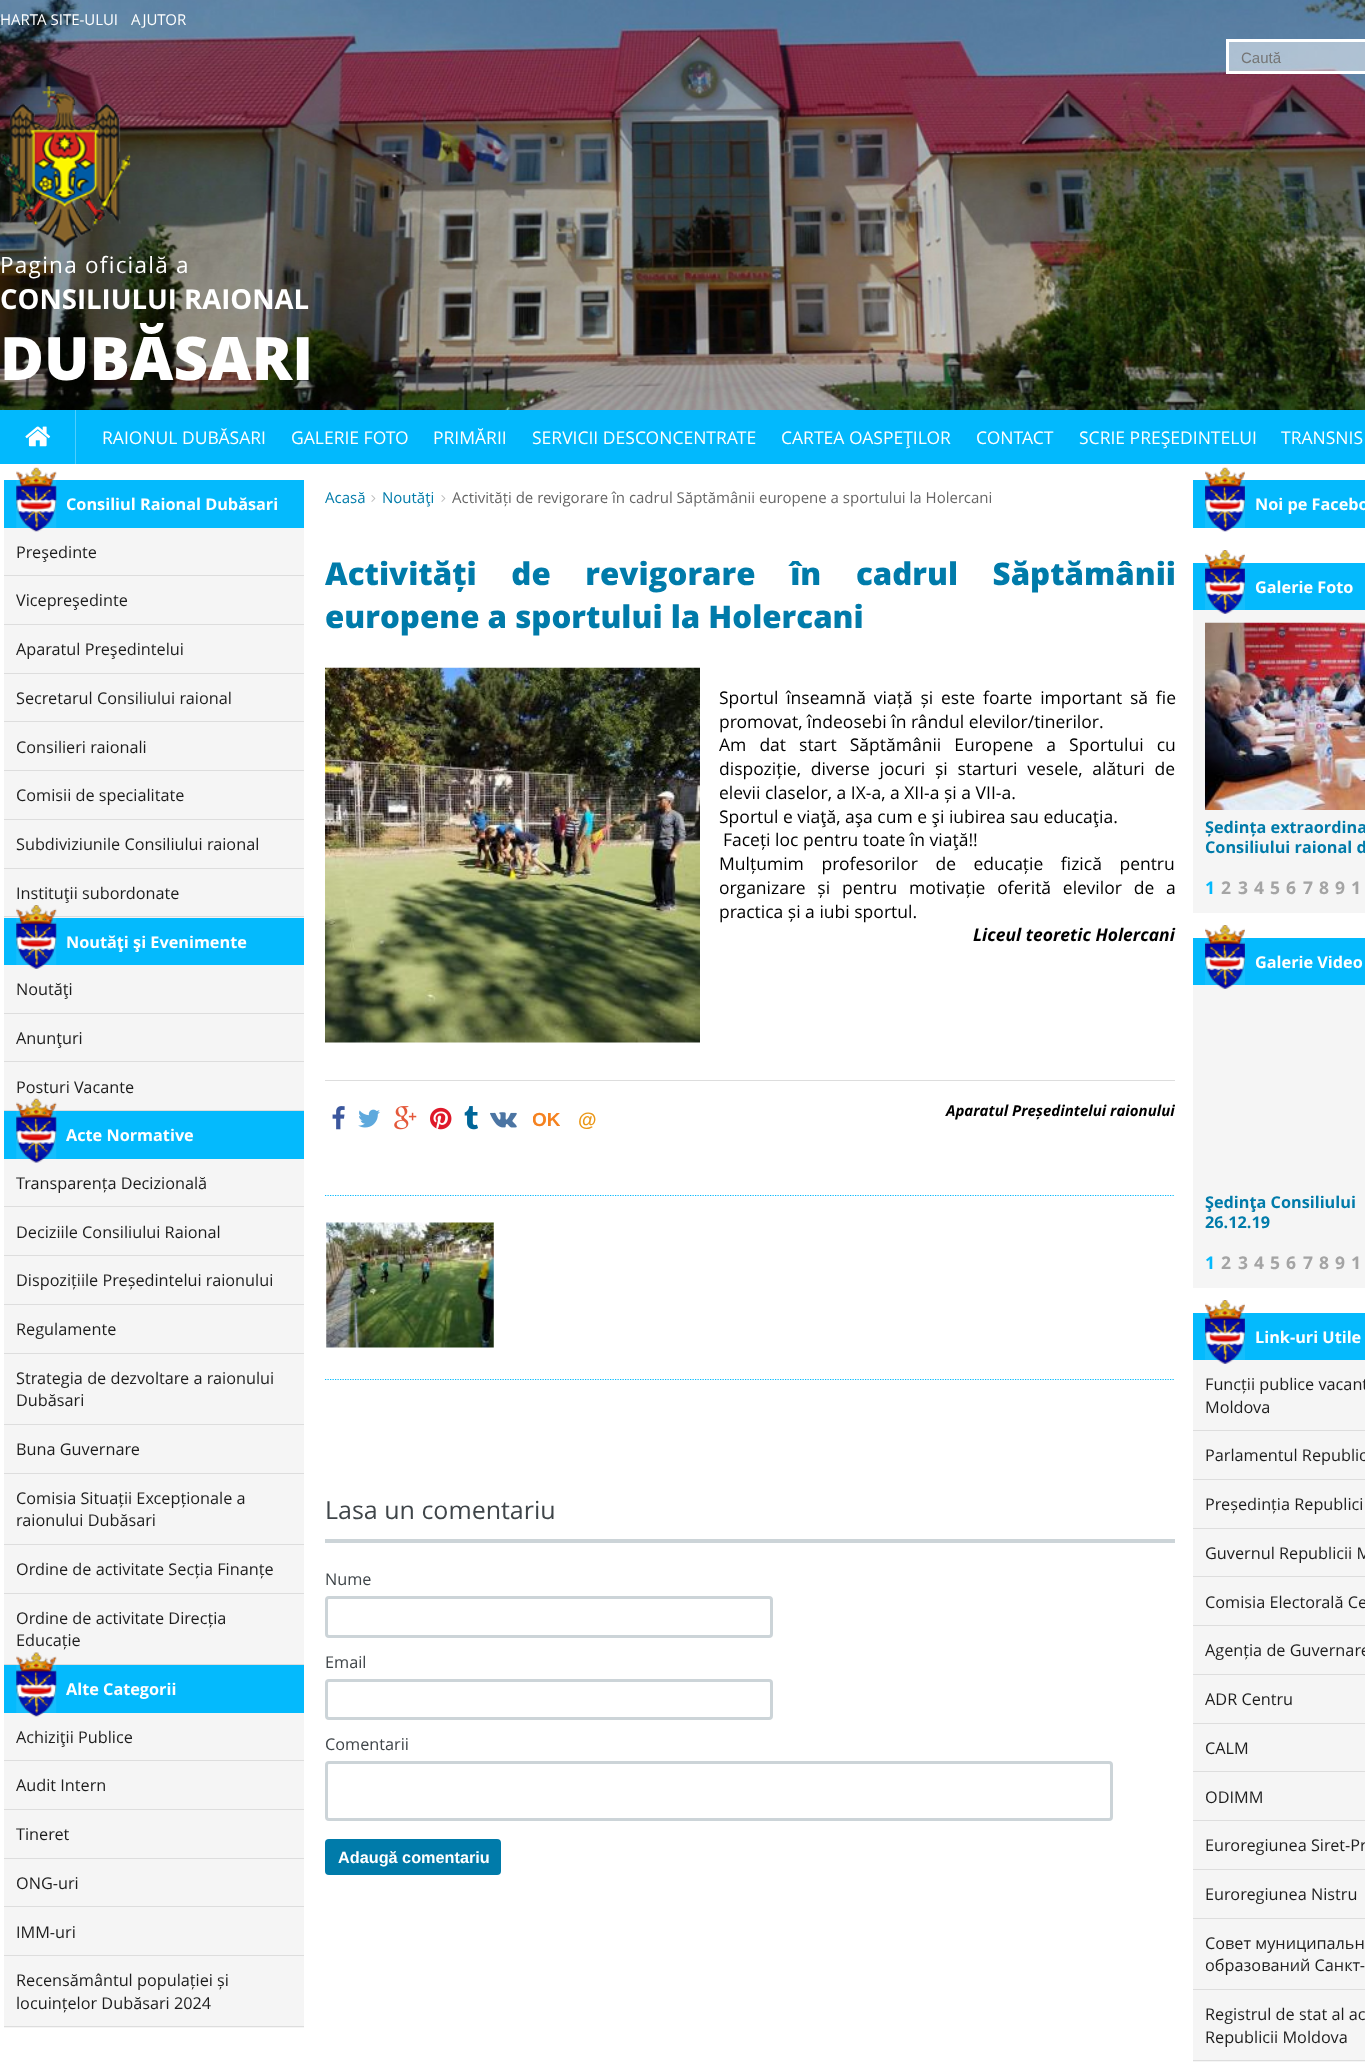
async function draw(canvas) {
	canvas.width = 1365;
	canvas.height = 2062;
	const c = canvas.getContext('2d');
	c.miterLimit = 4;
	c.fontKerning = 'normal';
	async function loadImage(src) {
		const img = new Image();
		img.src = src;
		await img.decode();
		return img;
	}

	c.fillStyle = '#fff';
	c.fillRect(0, 0, 1365, 2062);
	c.drawImage(await loadImage('img1.png'), 0, 0, 1365, 410);
	c.font = '15px Open Sans';
	c.fillText('HARTA SITE-ULUI', 0, 25);
	c.fillText('AJUTOR', 131, 25);
	c.fillStyle = '#ffffff80';
	c.beginPath();
	c.rect(1227.5, 40.5, 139, 32);
	c.fill();
	c.strokeStyle = '#fff';
	c.lineWidth = 3;
	c.stroke();
	c.font = '15px Liberation Sans';
	c.fillStyle = '#757575';
	c.fillText('Caută', 1241, 63);
	c.drawImage(await loadImage('img2.png'), 0, 86, 131, 163);
	c.letterSpacing = '1.25px';
	c.font = '22.5px Open Sans';
	c.fillStyle = '#fff';
	c.fillText('Pagina oficială a', 0, 273);
	c.letterSpacing = '0px';
	c.font = 'bold 27.5px Open Sans';
	c.fillText('CONSILIULUI RAIONAL', 0, 309);
	c.font = '800 60px Open Sans';
	c.fillText('DUBĂSARI', 0, 380);
	c.fillStyle = '#02b9fd';
	c.fillRect(0, 410, 1365, 54);
	c.fillStyle = '#4ecefe';
	c.fillRect(75, 410, 1, 54);
	c.drawImage(await loadImage('img3.png'), 25, 426, 26, 21);
	c.font = '17.5px Open Sans';
	c.fillStyle = '#fff';
	for (const [text, x, y] of [
		['RAIONUL DUBĂSARI', 102, 444],
		['GALERIE FOTO', 291, 444],
		['PRIMĂRII', 433, 444],
		['SERVICII DESCONCENTRATE', 532, 444],
		['CARTEA OASPEŢILOR', 781, 444],
		['CONTACT', 976, 444],
		['SCRIE PREŞEDINTELUI', 1079, 444],
		['TRANSNIS', 1281, 444],
	]) {
		c.fillText(text, x, y);
	}
	c.fillStyle = '#04bafd';
	c.fillRect(4, 480, 300, 48);
	c.fillStyle = '#f5f5f5';
	c.fillRect(4, 528, 300, 47);
	c.drawImage(await loadImage('img4.png'), 16, 467, 41, 65);
	c.font = 'bold 16.25px Open Sans';
	c.fillStyle = '#fff';
	c.fillText('Consiliul Raional Dubăsari', 66, 510);
	c.fillStyle = '#ddd';
	c.fillRect(4, 575, 300, 1);
	c.font = '16.25px Open Sans';
	c.fillStyle = '#1d1d1d';
	c.fillText('Preşedinte', 16, 558);
	c.fillStyle = '#f5f5f5';
	c.fillRect(4, 576, 300, 48);
	c.fillStyle = '#ddd';
	c.fillRect(4, 624, 300, 1);
	c.fillStyle = '#1d1d1d';
	c.fillText('Vicepreşedinte', 16, 606);
	c.fillStyle = '#f5f5f5';
	c.fillRect(4, 625, 300, 48);
	c.fillStyle = '#ddd';
	c.fillRect(4, 673, 300, 1);
	c.fillStyle = '#1d1d1d';
	c.fillText('Aparatul Preşedintelui', 16, 655);
	c.fillStyle = '#f5f5f5';
	c.fillRect(4, 674, 300, 96);
	c.fillStyle = '#ddd';
	c.fillRect(4, 721, 300, 1);
	c.fillStyle = '#1d1d1d';
	c.fillText('Secretarul Consiliului raional', 16, 704);
	c.fillStyle = '#ddd';
	c.fillRect(4, 770, 300, 1);
	c.fillStyle = '#1d1d1d';
	c.fillText('Consilieri raionali', 16, 753);
	c.fillStyle = '#f5f5f5';
	c.fillRect(4, 771, 300, 48);
	c.fillStyle = '#ddd';
	c.fillRect(4, 819, 300, 1);
	c.fillStyle = '#1d1d1d';
	c.fillText('Comisii de specialitate', 16, 801);
	c.fillStyle = '#f5f5f5';
	c.fillRect(4, 820, 300, 48);
	c.fillStyle = '#ddd';
	c.fillRect(4, 868, 300, 1);
	c.fillStyle = '#1d1d1d';
	c.fillText('Subdiviziunile Consiliului raional', 16, 850);
	c.fillStyle = '#f5f5f5';
	c.fillRect(4, 869, 300, 49);
	c.fillStyle = '#ddd';
	c.fillRect(4, 916, 300, 1);
	c.fillStyle = '#1d1d1d';
	c.fillText('Instituţii subordonate', 16, 899);
	c.fillStyle = '#04bafd';
	c.fillRect(4, 918, 300, 47);
	c.fillStyle = '#f5f5f5';
	c.fillRect(4, 965, 300, 48);
	c.drawImage(await loadImage('img5.png'), 16, 905, 41, 64);
	c.font = 'bold 16.25px Open Sans';
	c.fillStyle = '#fff';
	c.fillText('Noutăţi şi Evenimente', 66, 948);
	c.fillStyle = '#ddd';
	c.fillRect(4, 1013, 300, 1);
	c.font = '16.25px Open Sans';
	c.fillStyle = '#1d1d1d';
	c.fillText('Noutăţi', 16, 995);
	c.fillStyle = '#f5f5f5';
	c.fillRect(4, 1014, 300, 96);
	c.fillStyle = '#ddd';
	c.fillRect(4, 1061, 300, 1);
	c.fillStyle = '#1d1d1d';
	c.fillText('Anunţuri', 16, 1044);
	c.fillStyle = '#ddd';
	c.fillRect(4, 1110, 300, 1);
	c.fillStyle = '#1d1d1d';
	c.fillText('Posturi Vacante', 16, 1093);
	c.fillStyle = '#04bafd';
	c.fillRect(4, 1111, 300, 48);
	c.fillStyle = '#f5f5f5';
	c.fillRect(4, 1159, 300, 96);
	c.drawImage(await loadImage('img6.png'), 16, 1098, 41, 65);
	c.font = 'bold 16.25px Open Sans';
	c.fillStyle = '#fff';
	c.fillText('Acte Normative', 66, 1141);
	c.fillStyle = '#ddd';
	c.fillRect(4, 1206, 300, 1);
	c.font = '16.25px Open Sans';
	c.fillStyle = '#1d1d1d';
	c.fillText('Transparența Decizională', 16, 1189);
	c.fillStyle = '#ddd';
	c.fillRect(4, 1255, 300, 1);
	c.fillStyle = '#1d1d1d';
	c.fillText('Deciziile Consiliului Raional', 16, 1238);
	c.fillStyle = '#f5f5f5';
	c.fillRect(4, 1256, 300, 48);
	c.fillStyle = '#ddd';
	c.fillRect(4, 1304, 300, 1);
	c.fillStyle = '#1d1d1d';
	c.fillText('Dispozițiile Președintelui raionului', 16, 1286);
	c.fillStyle = '#f5f5f5';
	c.fillRect(4, 1305, 300, 48);
	c.fillStyle = '#ddd';
	c.fillRect(4, 1353, 300, 1);
	c.fillStyle = '#1d1d1d';
	c.fillText('Regulamente', 16, 1335);
	c.fillStyle = '#f5f5f5';
	c.fillRect(4, 1354, 300, 70);
	c.fillStyle = '#ddd';
	c.fillRect(4, 1424, 300, 1);
	c.fillStyle = '#1d1d1d';
	c.fillText('Strategia de dezvoltare a raionului', 16, 1384);
	c.fillText('Dubăsari', 16, 1406);
	c.fillStyle = '#f5f5f5';
	c.fillRect(4, 1425, 300, 48);
	c.fillStyle = '#ddd';
	c.fillRect(4, 1473, 300, 1);
	c.fillStyle = '#1d1d1d';
	c.fillText('Buna Guvernare', 16, 1455);
	c.fillStyle = '#f5f5f5';
	c.fillRect(4, 1474, 300, 70);
	c.fillStyle = '#ddd';
	c.fillRect(4, 1544, 300, 1);
	c.fillStyle = '#1d1d1d';
	c.fillText('Comisia Situații Excepționale a', 16, 1504);
	c.fillText('raionului Dubăsari', 16, 1526);
	c.fillStyle = '#f5f5f5';
	c.fillRect(4, 1545, 300, 48);
	c.fillStyle = '#ddd';
	c.fillRect(4, 1593, 300, 1);
	c.fillStyle = '#1d1d1d';
	c.fillText('Ordine de activitate Secția Finanțe', 16, 1575);
	c.fillStyle = '#f5f5f5';
	c.fillRect(4, 1594, 300, 70);
	c.fillStyle = '#ddd';
	c.fillRect(4, 1664, 300, 1);
	c.fillStyle = '#1d1d1d';
	c.fillText('Ordine de activitate Direcția', 16, 1624);
	c.fillText('Educație', 16, 1646);
	c.fillStyle = '#04bafd';
	c.fillRect(4, 1665, 300, 48);
	c.fillStyle = '#f5f5f5';
	c.fillRect(4, 1713, 300, 47);
	c.drawImage(await loadImage('img7.png'), 16, 1652, 41, 65);
	c.font = 'bold 16.25px Open Sans';
	c.fillStyle = '#fff';
	c.fillText('Alte Categorii', 66, 1695);
	c.fillStyle = '#ddd';
	c.fillRect(4, 1760, 300, 1);
	c.font = '16.25px Open Sans';
	c.fillStyle = '#1d1d1d';
	c.fillText('Achiziţii Publice', 16, 1743);
	c.fillStyle = '#f5f5f5';
	c.fillRect(4, 1761, 300, 48);
	c.fillStyle = '#ddd';
	c.fillRect(4, 1809, 300, 1);
	c.fillStyle = '#1d1d1d';
	c.fillText('Audit Intern', 16, 1791);
	c.fillStyle = '#f5f5f5';
	c.fillRect(4, 1810, 300, 48);
	c.fillStyle = '#ddd';
	c.fillRect(4, 1858, 300, 1);
	c.fillStyle = '#1d1d1d';
	c.fillText('Tineret', 16, 1840);
	c.fillStyle = '#f5f5f5';
	c.fillRect(4, 1859, 300, 96);
	c.fillStyle = '#ddd';
	c.fillRect(4, 1906, 300, 1);
	c.fillStyle = '#1d1d1d';
	c.fillText('ONG-uri', 16, 1889);
	c.fillStyle = '#ddd';
	c.fillRect(4, 1955, 300, 1);
	c.fillStyle = '#1d1d1d';
	c.fillText('IMM-uri', 16, 1938);
	c.fillStyle = '#f5f5f5';
	c.fillRect(4, 1956, 300, 72);
	c.fillStyle = '#ddd';
	c.fillRect(4, 2026, 300, 1);
	c.fillStyle = '#1d1d1d';
	c.fillText('Recensământul populației și', 16, 1986);
	c.fillText('locuințelor Dubăsari 2024', 16, 2009);
	c.font = '15px Open Sans';
	c.fillStyle = '#007baa';
	c.fillText('Acasă', 325, 503);
	c.drawImage(await loadImage('img8.png'), 371, 495, 5, 7);
	c.fillText('Noutăţi', 382, 503);
	c.drawImage(await loadImage('img8.png'), 441, 495, 5, 7);
	c.fillStyle = '#666';
	c.fillText('Activități de revigorare în cadrul Săptămânii europene a sportului la Holercani', 452, 503);
	c.wordSpacing = '26.5px';
	c.font = '800 31.25px Open Sans';
	c.fillStyle = '#007baa';
	c.fillText('Activități de revigorare în cadrul Săptămânii', 325, 585);
	c.wordSpacing = '0px';
	c.fillText('europene a sportului la Holercani', 325, 628);
	c.drawImage(await loadImage('img9.png'), 325, 667, 375, 376);
	c.wordSpacing = '3.25px';
	c.font = '17.5px Open Sans';
	c.fillStyle = '#000';
	c.fillText('Sportul înseamnă viață și este foarte important să fie', 719, 704);
	c.wordSpacing = '0px';
	c.fillText('promovat, îndeosebi în rândul elevilor/tinerilor.', 719, 728);
	c.wordSpacing = '8.5px';
	c.fillText('Am dat start Săptămânii Europene a Sportului cu', 719, 751);
	c.wordSpacing = '5.25px';
	c.fillText('dispoziție, diverse jocuri și starturi vesele, alături de', 719, 775);
	c.wordSpacing = '0px';
	for (const [text, x, y] of [
		['elevii claselor, a IX-a, a XII-a și a VII-a.', 719, 799],
		['Sportul e viaţă, aşa cum e şi iubirea sau educaţia.', 719, 823],
		['Faceți loc pentru toate în viaţă!!', 723, 846],
	]) {
		c.fillText(text, x, y);
	}
	c.wordSpacing = '13px';
	c.fillText('Mulțumim profesorilor de educație fizică pentru', 719, 870);
	c.wordSpacing = '7.25px';
	c.fillText('organizare și pentru motivație oferită elevilor de a', 719, 894);
	c.wordSpacing = '0px';
	c.fillText('practica și a iubi sportul.', 719, 918);
	c.font = 'italic bold 17.5px Open Sans';
	c.fillText('Liceul teoretic Holercani', 973, 941);
	c.fillStyle = '#ddd';
	c.fillRect(325, 1080, 850, 1);
	c.drawImage(await loadImage('img10.png'), 332, 1106, 13, 24);
	c.drawImage(await loadImage('img11.png'), 358, 1109, 22, 19);
	c.drawImage(await loadImage('img12.png'), 394, 1106, 23, 24);
	c.drawImage(await loadImage('img13.png'), 430, 1107, 22, 23);
	c.drawImage(await loadImage('img14.png'), 464, 1106, 14, 24);
	c.drawImage(await loadImage('img15.png'), 490, 1112, 27, 16);
	c.save();
	c.beginPath();
	c.rect(533, 1109, 27, 21);
	c.clip();
	c.font = 'bold 19px Liberation Sans';
	c.fillStyle = '#f58220';
	c.fillText('OK', 532, 1126);
	c.restore();
	c.font = 'bold 19px Liberation Sans';
	c.fillStyle = '#eb9716';
	c.fillText('@', 578, 1126);
	c.font = 'italic bold 15px Open Sans';
	c.fillStyle = '#000';
	c.fillText('Aparatul Președintelui raionului', 946, 1116);
	c.beginPath();
	c.moveTo(325, 1195.5);
	c.lineTo(1175, 1195.5);
	c.strokeStyle = '#04bafd';
	c.lineWidth = 1.2;
	c.setLineDash([1.25, 1.25]);
	c.stroke();
	c.beginPath();
	c.moveTo(325, 1379.5);
	c.lineTo(1175, 1379.5);
	c.stroke();
	c.drawImage(await loadImage('img16.png'), 326, 1222, 168, 126);
	c.fillStyle = '#ccd4d8';
	c.fillRect(325, 1539, 850, 4);
	c.font = '25px Open Sans';
	c.fillStyle = '#3f4549';
	c.fillText('Lasa un comentariu', 325, 1519);
	c.font = '16.25px Open Sans';
	c.fillText('Nume', 325, 1585);
	c.beginPath();
	c.roundRect(326.5, 1597.5, 445, 39, 2.5);
	c.strokeStyle = '#ccd4d8';
	c.lineWidth = 3;
	c.setLineDash([]);
	c.stroke();
	c.fillText('Email', 325, 1668);
	c.beginPath();
	c.roundRect(326.5, 1680.5, 445, 38, 2.5);
	c.stroke();
	c.fillText('Comentarii', 325, 1750);
	c.beginPath();
	c.roundRect(326.5, 1762.5, 785, 57, 2.5);
	c.stroke();
	c.fillStyle = '#007baa';
	c.beginPath();
	c.roundRect(325, 1839, 176, 36, 4);
	c.fill();
	c.font = 'bold 16.25px Liberation Sans';
	c.fillStyle = '#fff';
	c.fillText('Adaugă comentariu', 338, 1863);
	c.fillStyle = '#04bafd';
	c.fillRect(1193, 480, 172, 48);
	c.drawImage(await loadImage('img17.png'), 1205, 467, 40, 65);
	c.font = 'bold 16.25px Open Sans';
	c.fillStyle = '#fff';
	c.fillText('Noi pe Facebo', 1255, 510);
	c.fillStyle = '#04bafd';
	c.fillRect(1193, 563, 172, 47);
	c.fillStyle = '#f5f5f5';
	c.fillRect(1193, 610, 172, 303);
	c.drawImage(await loadImage('img18.png'), 1205, 550, 40, 64);
	c.fillStyle = '#fff';
	c.fillText('Galerie Foto', 1255, 593);
	c.drawImage(await loadImage('img19.png'), 1205, 622, 160, 188);
	c.fillStyle = '#007baa';
	c.fillText('Ședința extraordina', 1205, 833);
	c.fillText('Consiliului raional d', 1205, 853);
	c.font = 'bold 17.5px Open Sans';
	c.fillStyle = '#02b9fd';
	c.fillText('1', 1205, 894);
	c.fillStyle = '#a4a4a4';
	for (const [text, x, y] of [
		['2', 1221, 894],
		['3', 1238, 894],
		['4', 1254, 894],
		['5', 1270, 894],
		['6', 1286, 894],
		['7', 1303, 894],
		['8', 1319, 894],
		['9', 1335, 894],
		['1', 1351, 894],
	]) {
		c.fillText(text, x, y);
	}
	c.fillStyle = '#04bafd';
	c.fillRect(1193, 938, 172, 47);
	c.fillStyle = '#f5f5f5';
	c.fillRect(1193, 985, 172, 303);
	c.drawImage(await loadImage('img20.png'), 1205, 925, 40, 64);
	c.font = 'bold 16.25px Open Sans';
	c.fillStyle = '#fff';
	c.fillText('Galerie Video', 1255, 968);
	c.fillStyle = '#007baa';
	c.fillText('Şedinţa Consiliului', 1205, 1208);
	c.fillText('26.12.19', 1205, 1228);
	c.font = 'bold 17.5px Open Sans';
	c.fillStyle = '#02b9fd';
	c.fillText('1', 1205, 1269);
	c.fillStyle = '#a4a4a4';
	for (const [text, x, y] of [
		['2', 1221, 1269],
		['3', 1238, 1269],
		['4', 1254, 1269],
		['5', 1270, 1269],
		['6', 1286, 1269],
		['7', 1303, 1269],
		['8', 1319, 1269],
		['9', 1335, 1269],
		['1', 1351, 1269],
	]) {
		c.fillText(text, x, y);
	}
	c.fillStyle = '#04bafd';
	c.fillRect(1193, 1313, 172, 47);
	c.fillStyle = '#f5f5f5';
	c.fillRect(1193, 1360, 172, 70);
	c.drawImage(await loadImage('img20.png'), 1205, 1300, 40, 64);
	c.font = 'bold 16.25px Open Sans';
	c.fillStyle = '#fff';
	c.fillText('Link-uri Utile', 1255, 1343);
	c.fillStyle = '#ddd';
	c.fillRect(1193, 1430, 172, 1);
	c.font = '16.25px Open Sans';
	c.fillStyle = '#1d1d1d';
	c.fillText('Funcții publice vacant', 1205, 1390);
	c.fillText('Moldova', 1205, 1413);
	c.fillStyle = '#f5f5f5';
	c.fillRect(1193, 1431, 172, 48);
	c.fillStyle = '#ddd';
	c.fillRect(1193, 1479, 172, 1);
	c.fillStyle = '#1d1d1d';
	c.fillText('Parlamentul Republic', 1205, 1461);
	c.fillStyle = '#f5f5f5';
	c.fillRect(1193, 1480, 172, 48);
	c.fillStyle = '#ddd';
	c.fillRect(1193, 1528, 172, 1);
	c.fillStyle = '#1d1d1d';
	c.fillText('Președinția Republici', 1205, 1510);
	c.fillStyle = '#f5f5f5';
	c.fillRect(1193, 1529, 172, 96);
	c.fillStyle = '#ddd';
	c.fillRect(1193, 1576, 172, 1);
	c.fillStyle = '#1d1d1d';
	c.fillText('Guvernul Republicii M', 1205, 1559);
	c.fillStyle = '#ddd';
	c.fillRect(1193, 1625, 172, 1);
	c.fillStyle = '#1d1d1d';
	c.fillText('Comisia Electorală Ce', 1205, 1608);
	c.fillStyle = '#f5f5f5';
	c.fillRect(1193, 1626, 172, 48);
	c.fillStyle = '#ddd';
	c.fillRect(1193, 1674, 172, 1);
	c.fillStyle = '#1d1d1d';
	c.fillText('Agenția de Guvernare', 1205, 1656);
	c.fillStyle = '#f5f5f5';
	c.fillRect(1193, 1675, 172, 48);
	c.fillStyle = '#ddd';
	c.fillRect(1193, 1723, 172, 1);
	c.fillStyle = '#1d1d1d';
	c.fillText('ADR Centru', 1205, 1705);
	c.fillStyle = '#f5f5f5';
	c.fillRect(1193, 1724, 172, 96);
	c.fillStyle = '#ddd';
	c.fillRect(1193, 1771, 172, 1);
	c.fillStyle = '#1d1d1d';
	c.fillText('CALM', 1205, 1754);
	c.fillStyle = '#ddd';
	c.fillRect(1193, 1820, 172, 1);
	c.fillStyle = '#1d1d1d';
	c.fillText('ODIMM', 1205, 1803);
	c.fillStyle = '#f5f5f5';
	c.fillRect(1193, 1821, 172, 48);
	c.fillStyle = '#ddd';
	c.fillRect(1193, 1869, 172, 1);
	c.fillStyle = '#1d1d1d';
	c.fillText('Euroregiunea Siret-Pr', 1205, 1851);
	c.fillStyle = '#f5f5f5';
	c.fillRect(1193, 1870, 172, 48);
	c.fillStyle = '#ddd';
	c.fillRect(1193, 1918, 172, 1);
	c.fillStyle = '#1d1d1d';
	c.fillText('Euroregiunea Nistru', 1205, 1900);
	c.fillStyle = '#f5f5f5';
	c.fillRect(1193, 1919, 172, 70);
	c.fillStyle = '#ddd';
	c.fillRect(1193, 1989, 172, 1);
	c.fillStyle = '#1d1d1d';
	c.fillText('Совет муниципальн', 1205, 1949);
	c.fillText('образований Санкт-', 1205, 1971);
	c.fillStyle = '#f5f5f5';
	c.fillRect(1193, 1990, 172, 70);
	c.fillStyle = '#ddd';
	c.fillRect(1193, 2060, 172, 1);
	c.fillStyle = '#1d1d1d';
	c.fillText('Registrul de stat al ac', 1205, 2020);
	c.fillText('Republicii Moldova', 1205, 2043);
	c.fillStyle = '#f5f5f5';
	c.fillRect(1193, 2061, 172, 1);
}

draw(document.querySelector('canvas'));
